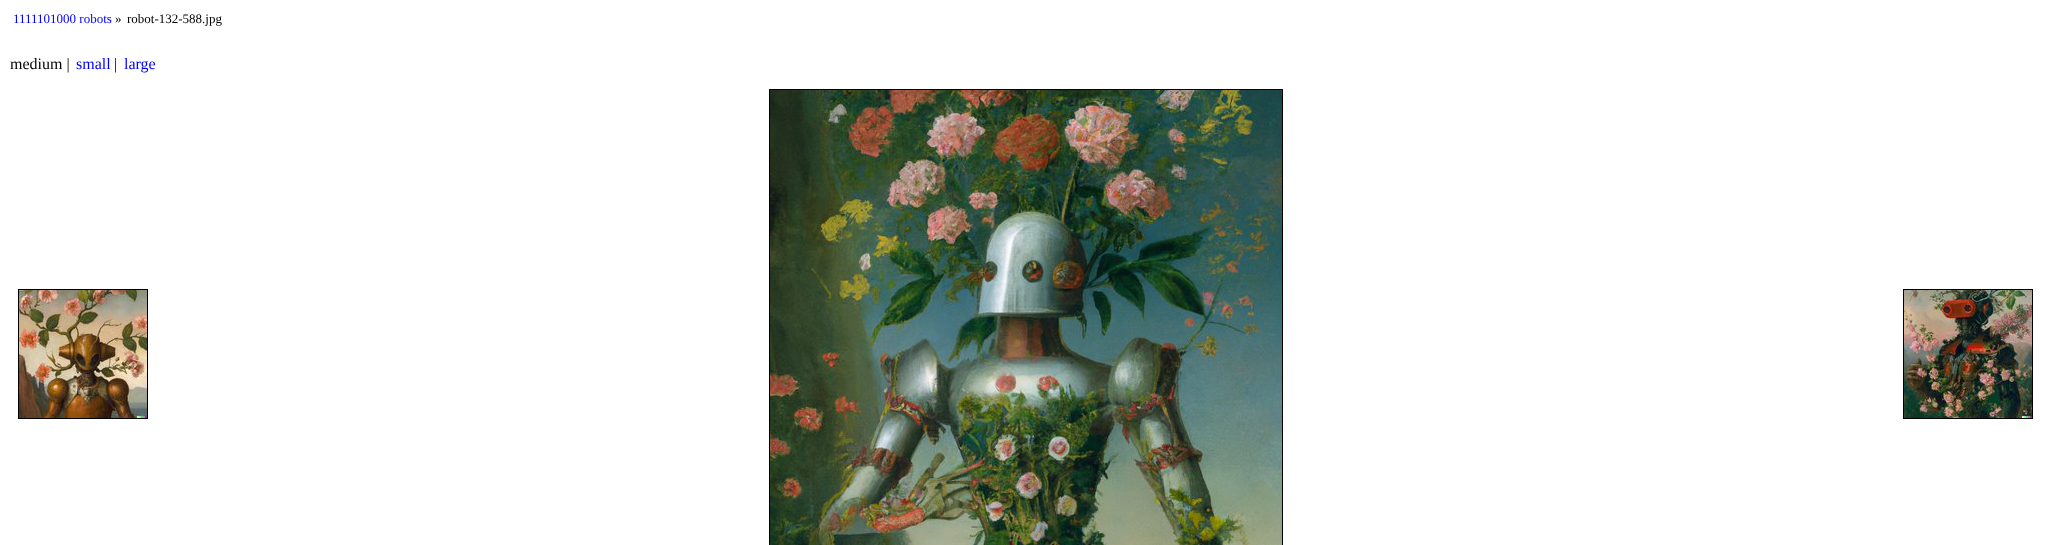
async function draw(canvas) {
	canvas.width = 2051;
	canvas.height = 545;
	const c = canvas.getContext('2d');
	c.miterLimit = 4;
	c.fontKerning = 'normal';
	async function loadImage(src) {
		const img = new Image();
		img.src = src;
		await img.decode();
		return img;
	}

	c.fillStyle = '#fff';
	c.fillRect(0, 0, 2051, 545);
	c.font = '13px Liberation Serif';
	c.fillStyle = '#00f';
	c.fillText('1111101000 robots', 13, 23);
	c.fillStyle = '#000';
	c.fillText('»', 115, 23);
	c.fillText('robot-132-588.jpg', 127, 23);
	c.font = '16px Liberation Serif';
	c.fillText('medium |', 10, 69);
	c.fillStyle = '#00f';
	c.fillText('small', 76, 69);
	c.fillStyle = '#000';
	c.fillText('|', 114, 69);
	c.fillStyle = '#00f';
	c.fillText('large', 124, 69);
	c.strokeStyle = '#000';
	c.strokeRect(18.5, 289.5, 129, 129);
	c.drawImage(await loadImage('img1.png'), 19, 290, 128, 128);
	c.strokeRect(769.5, 89.5, 513, 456);
	c.drawImage(await loadImage('img2.png'), 770, 90, 512, 455);
	c.strokeRect(1903.5, 289.5, 129, 129);
	c.drawImage(await loadImage('img3.png'), 1904, 290, 128, 128);
}

draw(document.querySelector('canvas'));
